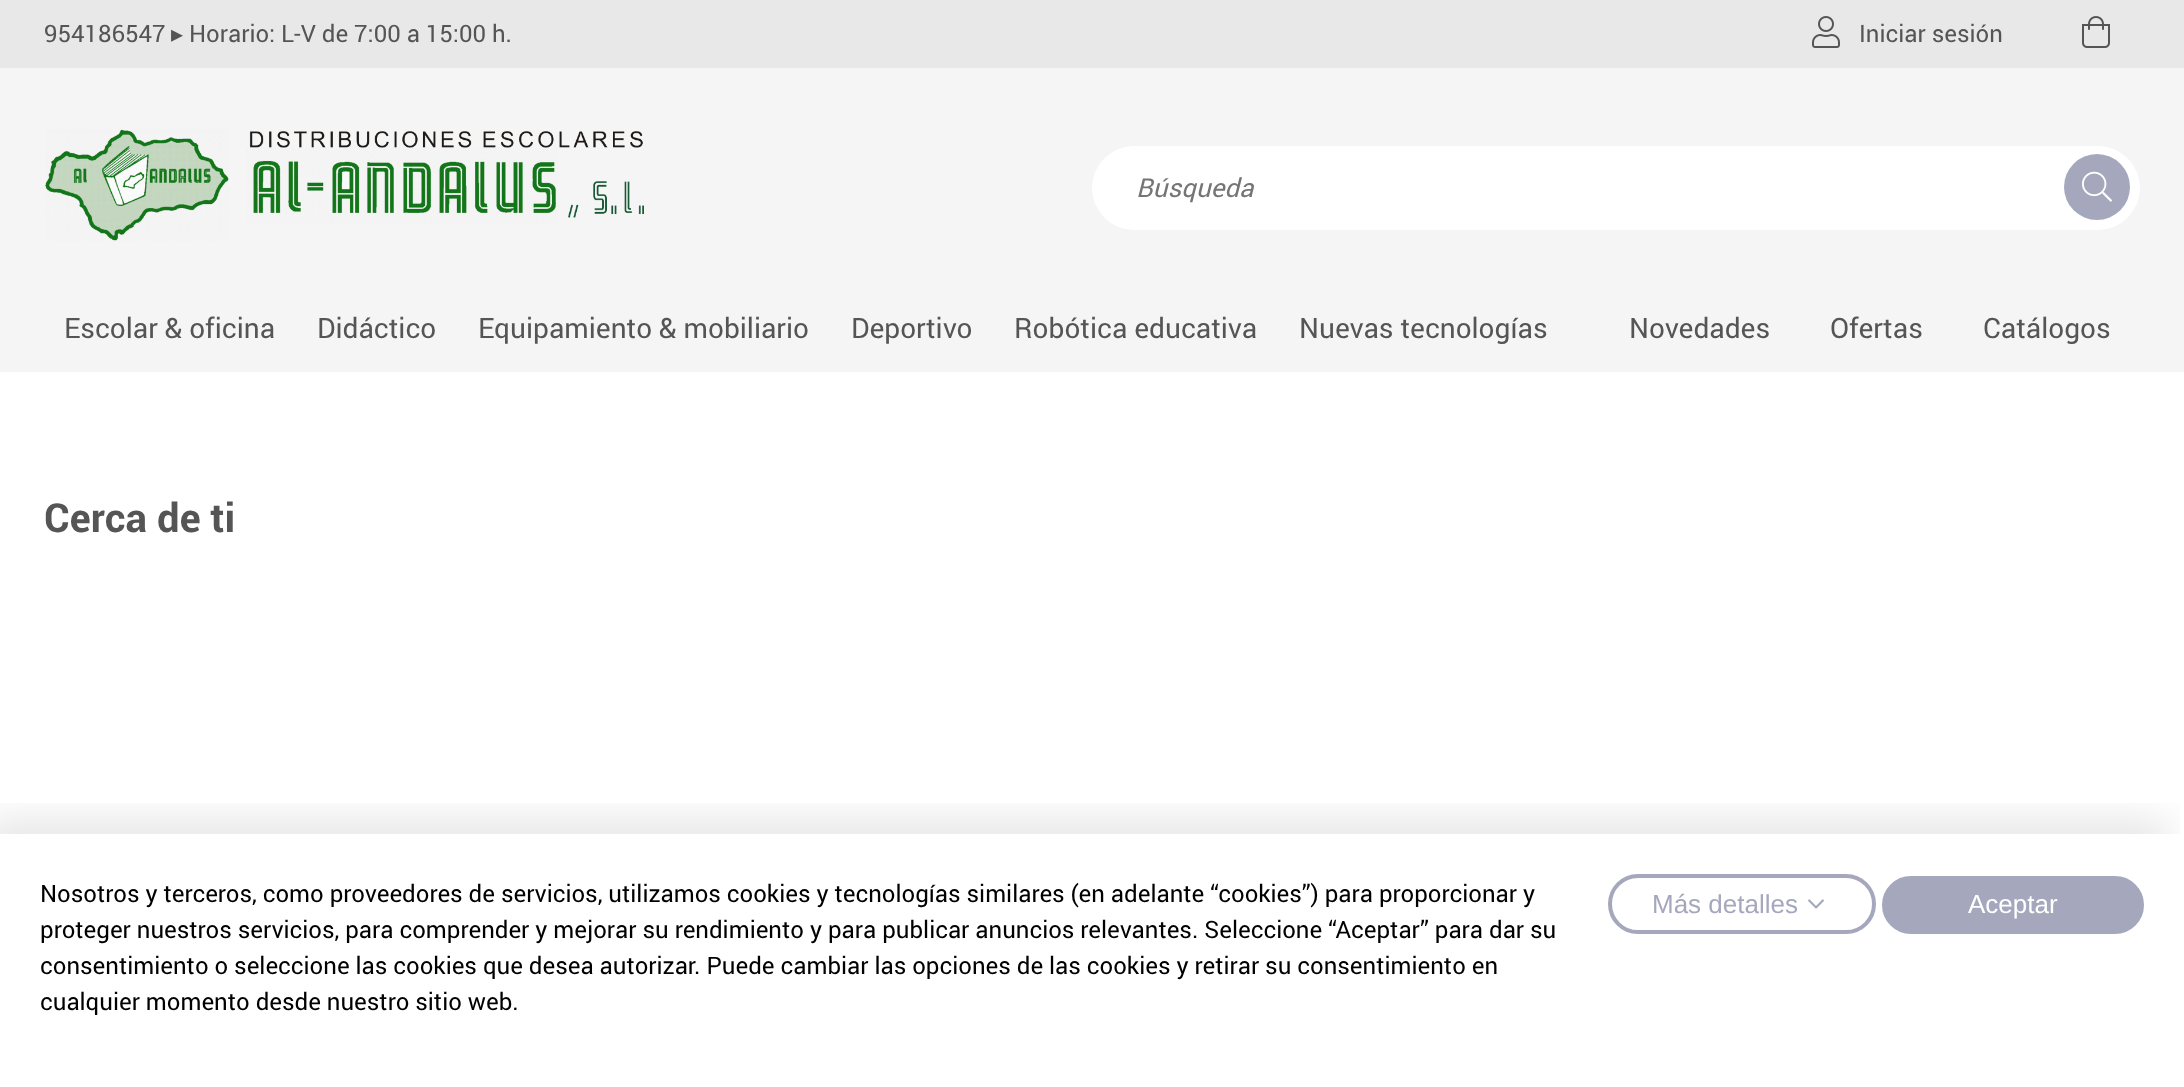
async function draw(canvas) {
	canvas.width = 2184;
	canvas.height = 1087;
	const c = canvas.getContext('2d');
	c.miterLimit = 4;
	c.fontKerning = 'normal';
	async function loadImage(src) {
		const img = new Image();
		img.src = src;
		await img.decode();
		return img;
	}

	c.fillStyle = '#fff';
	c.fillRect(0, 0, 2184, 1087);
	c.fillStyle = '#e8e8e8';
	c.fillRect(0, 0, 2184, 68);
	c.font = '24px roboto';
	c.fillStyle = '#555';
	c.fillText('954186547', 44, 42);
	c.font = '24px DejaVu Sans';
	c.fillText('▸', 171, 42);
	c.font = '24px roboto';
	c.fillText('Horario: L-V de 7:00 a 15:00 h.', 189, 42);
	c.drawImage(await loadImage('img1.png'), 1812, 16, 28, 32);
	c.fillText('Iniciar sesión', 1859, 42);
	c.drawImage(await loadImage('img2.png'), 2082, 16, 28, 32);
	c.fillStyle = '#f5f5f5';
	c.fillRect(0, 68, 2184, 304);
	c.drawImage(await loadImage('img3.png'), 45, 129, 599, 112);
	c.fillStyle = '#fff';
	c.beginPath();
	c.roundRect(1092, 146, 1048, 84, 42);
	c.fill();
	c.font = 'italic 26px roboto';
	c.fillStyle = '#757575';
	c.fillText('Búsqueda', 1136, 197);
	c.fillStyle = '#a5a8bd';
	c.beginPath();
	c.arc(2097, 187, 33, 0, 2 * Math.PI);
	c.fill();
	c.drawImage(await loadImage('img4.png'), 2082, 171, 30, 31);
	c.font = '28px roboto';
	c.fillStyle = '#555';
	for (const [text, x, y] of [
		['Escolar & oficina', 64, 338],
		['Didáctico', 317, 338],
		['Equipamiento & mobiliario', 478, 338],
		['Deportivo', 851, 338],
		['Robótica educativa', 1014, 338],
		['Nuevas tecnologías', 1299, 338],
		['Novedades', 1629, 338],
		['Ofertas', 1830, 338],
		['Catálogos', 1983, 338],
	]) {
		c.fillText(text, x, y);
	}
	c.font = 'bold 40px roboto';
	c.fillText('Cerca de ti', 44, 532);
	c.save();
	c.beginPath();
	c.rect(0, 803, 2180, 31);
	c.clip();
	c.fillStyle = '#0000001a';
	c.filter = 'blur(20px)';
	c.beginPath();
	c.rect(-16, 820, 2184, 254);
	c.fill();
	c.filter = 'none';
	c.restore();
	c.font = '24px roboto';
	c.fillStyle = '#000';
	for (const [text, x, y] of [
		['Nosotros y terceros, como proveedores de servicios, utilizamos cookies y tecnologías similares (en adelante “cookies”) para proporcionar y', 40, 902],
		['proteger nuestros servicios, para comprender y mejorar su rendimiento y para publicar anuncios relevantes. Seleccione “Aceptar” para dar su', 40, 938],
		['consentimiento o seleccione las cookies que desea autorizar. Puede cambiar las opciones de las cookies y retirar su consentimiento en', 40, 974],
		['cualquier momento desde nuestro sitio web.', 40, 1010],
	]) {
		c.fillText(text, x, y);
	}
	c.beginPath();
	c.roundRect(1610, 876, 264, 56, 28);
	c.strokeStyle = '#a5a8bd';
	c.lineWidth = 4;
	c.stroke();
	c.font = '26px Liberation Sans';
	c.fillStyle = '#a5a8bd';
	c.fillText('Más detalles', 1652, 913);
	c.drawImage(await loadImage('img5.png'), 1808, 899, 16, 10);
	c.beginPath();
	c.roundRect(1884, 878, 258, 54, 27);
	c.fill();
	c.stroke();
	c.fillStyle = '#fff';
	c.fillText('Aceptar', 1968, 913);
}

draw(document.querySelector('canvas'));
